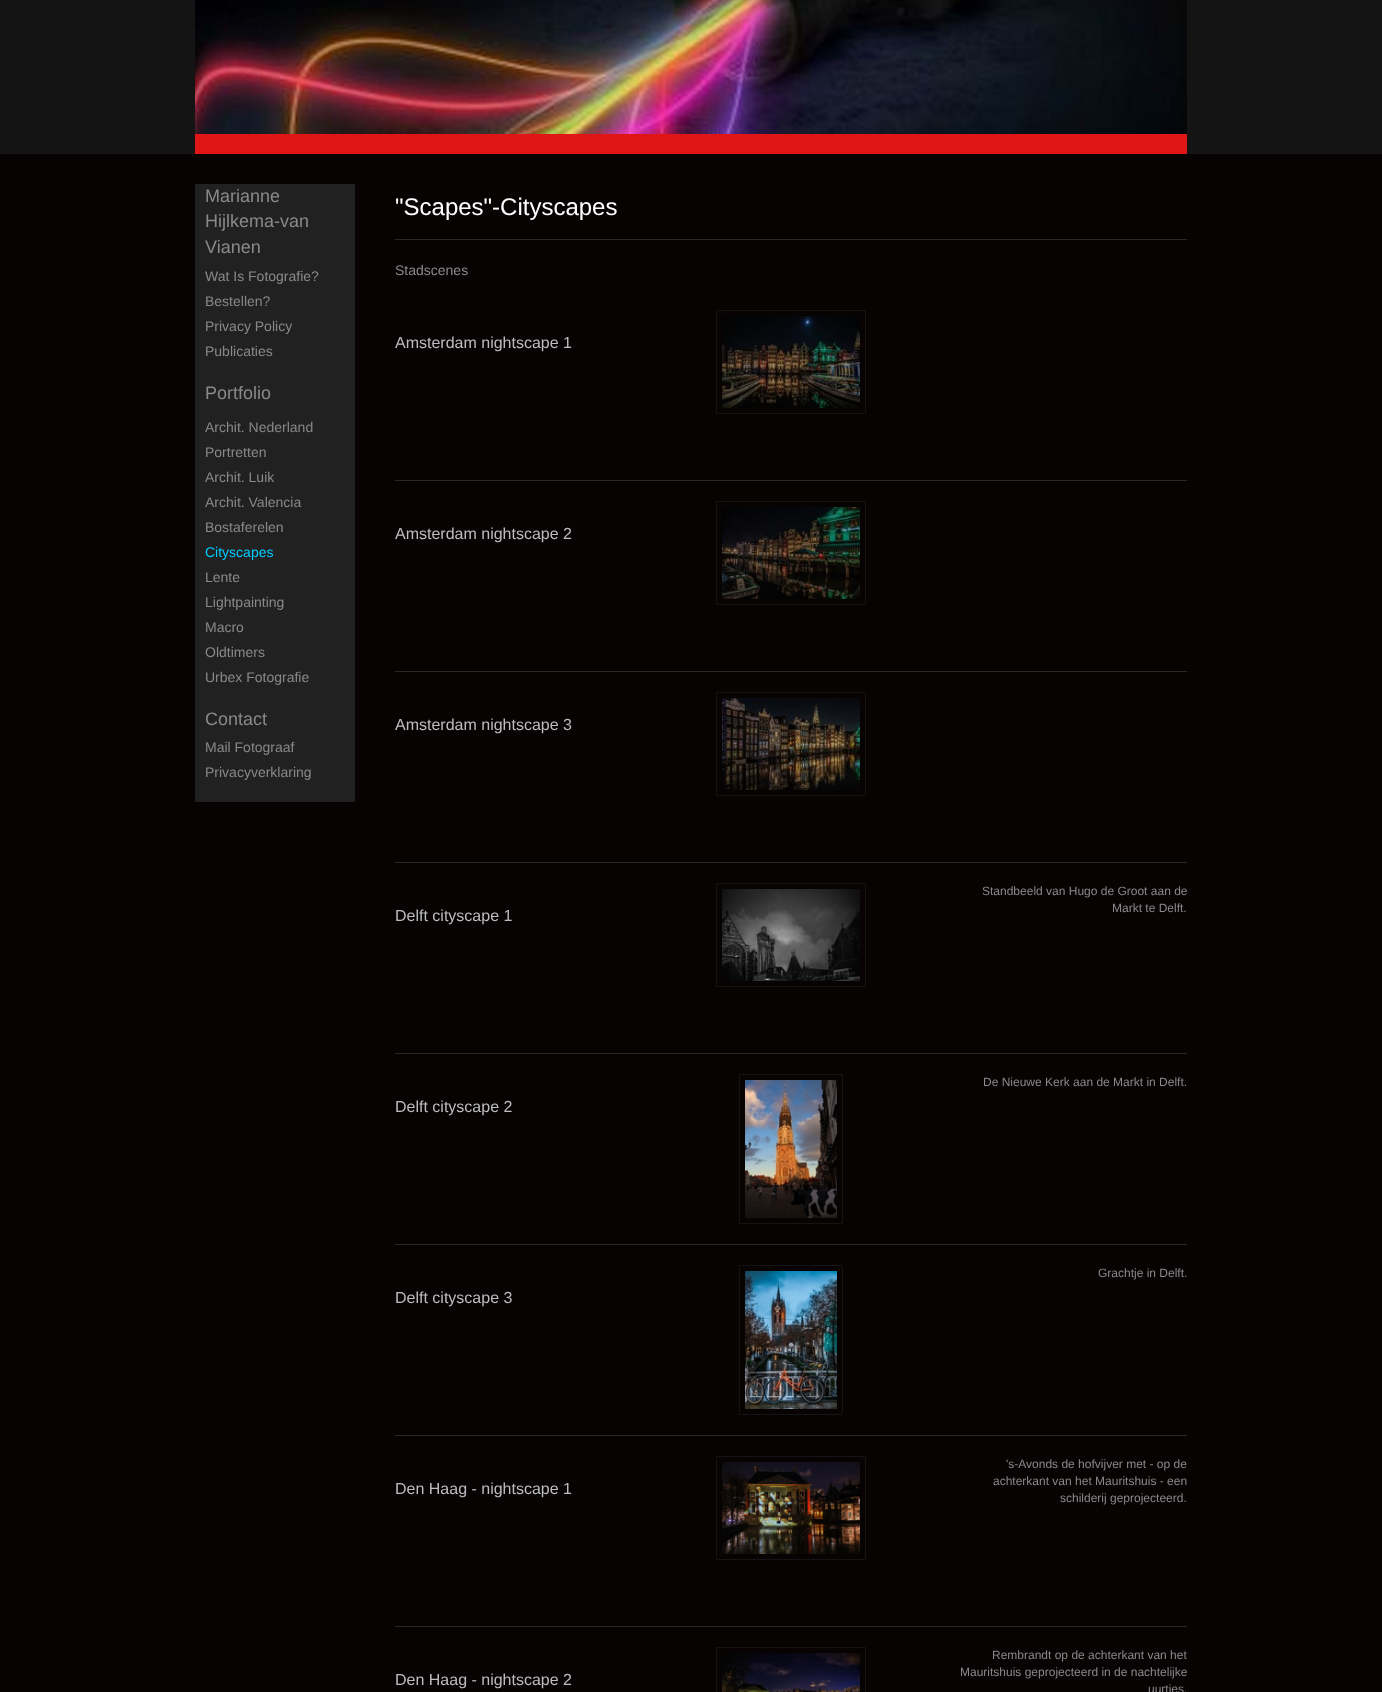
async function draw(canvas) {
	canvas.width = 1382;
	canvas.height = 1692;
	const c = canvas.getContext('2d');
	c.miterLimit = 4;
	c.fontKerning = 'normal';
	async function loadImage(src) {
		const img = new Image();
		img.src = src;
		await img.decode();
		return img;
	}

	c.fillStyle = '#070303';
	c.fillRect(0, 0, 1382, 1692);
	c.fillStyle = '#141414';
	c.fillRect(0, 0, 1382, 154);
	c.drawImage(await loadImage('img1.png'), 195, 0, 992, 134);
	c.fillStyle = '#e01515';
	c.fillRect(195, 134, 992, 20);
	c.fillStyle = '#212121';
	c.fillRect(195, 184, 160, 618);
	c.font = '18px Liberation Sans';
	c.fillStyle = '#89898b';
	for (const [text, x, y] of [
		['Marianne', 205, 202],
		['Hijlkema-van', 205, 227],
		['Vianen', 205, 253],
	]) {
		c.fillText(text, x, y);
	}
	c.font = '14px Liberation Sans';
	for (const [text, x, y] of [
		['Wat Is Fotografie?', 205, 281],
		['Bestellen?', 205, 306],
		['Privacy Policy', 205, 331],
		['Publicaties', 205, 356],
	]) {
		c.fillText(text, x, y);
	}
	c.font = '18px Liberation Sans';
	c.fillText('Portfolio', 205, 399);
	c.font = '14px Liberation Sans';
	for (const [text, x, y] of [
		['Archit. Nederland', 205, 432],
		['Portretten', 205, 457],
		['Archit. Luik', 205, 482],
		['Archit. Valencia', 205, 507],
		['Bostaferelen', 205, 532],
	]) {
		c.fillText(text, x, y);
	}
	c.fillStyle = '#0cf';
	c.fillText('Cityscapes', 205, 557);
	c.fillStyle = '#89898b';
	for (const [text, x, y] of [
		['Lente', 205, 582],
		['Lightpainting', 205, 607],
		['Macro', 205, 632],
		['Oldtimers', 205, 657],
		['Urbex Fotografie', 205, 682],
	]) {
		c.fillText(text, x, y);
	}
	c.font = '18px Liberation Sans';
	c.fillText('Contact', 205, 725);
	c.font = '14px Liberation Sans';
	c.fillText('Mail Fotograaf', 205, 752);
	c.fillText('Privacyverklaring', 205, 777);
	c.fillStyle = '#282828';
	c.fillRect(395, 239, 792, 1);
	c.font = '24px Liberation Sans';
	c.fillStyle = '#fff';
	c.fillText('"Scapes"-Cityscapes', 395, 215);
	c.font = '14px Liberation Sans';
	c.fillStyle = '#89898b';
	c.fillText('Stadscenes', 395, 275);
	c.fillStyle = '#282828';
	c.fillRect(395, 480, 792, 1);
	c.font = '16px Liberation Sans';
	c.fillStyle = '#bcbdc0';
	c.fillText('Amsterdam nightscape 1', 395, 348);
	c.beginPath();
	c.roundRect(716.5, 310.5, 149, 103, 0.5);
	c.strokeStyle = '#141414';
	c.stroke();
	c.drawImage(await loadImage('img2.png'), 722, 316, 138, 92);
	c.fillStyle = '#282828';
	c.fillRect(395, 671, 792, 1);
	c.fillStyle = '#bcbdc0';
	c.fillText('Amsterdam nightscape 2', 395, 539);
	c.beginPath();
	c.roundRect(716.5, 501.5, 149, 103, 0.5);
	c.stroke();
	c.drawImage(await loadImage('img3.png'), 722, 507, 138, 92);
	c.fillStyle = '#282828';
	c.fillRect(395, 862, 792, 1);
	c.fillStyle = '#bcbdc0';
	c.fillText('Amsterdam nightscape 3', 395, 730);
	c.beginPath();
	c.roundRect(716.5, 692.5, 149, 103, 0.5);
	c.stroke();
	c.drawImage(await loadImage('img4.png'), 722, 698, 138, 92);
	c.fillStyle = '#282828';
	c.fillRect(395, 1053, 792, 1);
	c.beginPath();
	c.roundRect(716.5, 883.5, 149, 103, 0.5);
	c.stroke();
	c.drawImage(await loadImage('img5.png'), 722, 889, 138, 92);
	c.font = '12px Liberation Sans';
	c.fillStyle = '#89898b';
	c.fillText('Standbeeld van Hugo de Groot aan de', 982, 895);
	c.fillText('Markt te Delft.', 1112, 912);
	c.font = '16px Liberation Sans';
	c.fillStyle = '#bcbdc0';
	c.fillText('Delft cityscape 1', 395, 921);
	c.fillStyle = '#282828';
	c.fillRect(395, 1244, 792, 1);
	c.beginPath();
	c.roundRect(739.5, 1074.5, 103, 149, 0.5);
	c.stroke();
	c.drawImage(await loadImage('img6.png'), 745, 1080, 92, 138);
	c.font = '12px Liberation Sans';
	c.fillStyle = '#89898b';
	c.fillText('De Nieuwe Kerk aan de Markt in Delft.', 983, 1086);
	c.font = '16px Liberation Sans';
	c.fillStyle = '#bcbdc0';
	c.fillText('Delft cityscape 2', 395, 1112);
	c.fillStyle = '#282828';
	c.fillRect(395, 1435, 792, 1);
	c.beginPath();
	c.roundRect(739.5, 1265.5, 103, 149, 0.5);
	c.stroke();
	c.drawImage(await loadImage('img7.png'), 745, 1271, 92, 138);
	c.font = '12px Liberation Sans';
	c.fillStyle = '#89898b';
	c.fillText('Grachtje in Delft.', 1098, 1277);
	c.font = '16px Liberation Sans';
	c.fillStyle = '#bcbdc0';
	c.fillText('Delft cityscape 3', 395, 1303);
	c.fillStyle = '#282828';
	c.fillRect(395, 1626, 792, 1);
	c.beginPath();
	c.roundRect(716.5, 1456.5, 149, 103, 0.5);
	c.stroke();
	c.drawImage(await loadImage('img8.png'), 722, 1462, 138, 92);
	c.fillStyle = '#bcbdc0';
	c.fillText('Den Haag - nightscape 1', 395, 1494);
	c.font = '12px Liberation Sans';
	c.fillStyle = '#89898b';
	for (const [text, x, y] of [
		['\'s-Avonds de hofvijver met - op de', 1006, 1468],
		['achterkant van het Mauritshuis - een', 993, 1485],
		['schilderij geprojecteerd.', 1060, 1502],
	]) {
		c.fillText(text, x, y);
	}
	c.beginPath();
	c.roundRect(716.5, 1647.5, 149, 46, 0.5);
	c.stroke();
	c.drawImage(await loadImage('img9.png'), 722, 1653, 138, 39);
	c.font = '16px Liberation Sans';
	c.fillStyle = '#bcbdc0';
	c.fillText('Den Haag - nightscape 2', 395, 1685);
	c.font = '12px Liberation Sans';
	c.fillStyle = '#89898b';
	for (const [text, x, y] of [
		['Rembrandt op de achterkant van het', 992, 1659],
		['Mauritshuis geprojecteerd in de nachtelijke', 960, 1676],
		['uurtjes.', 1148, 1693],
	]) {
		c.fillText(text, x, y);
	}
}

draw(document.querySelector('canvas'));
